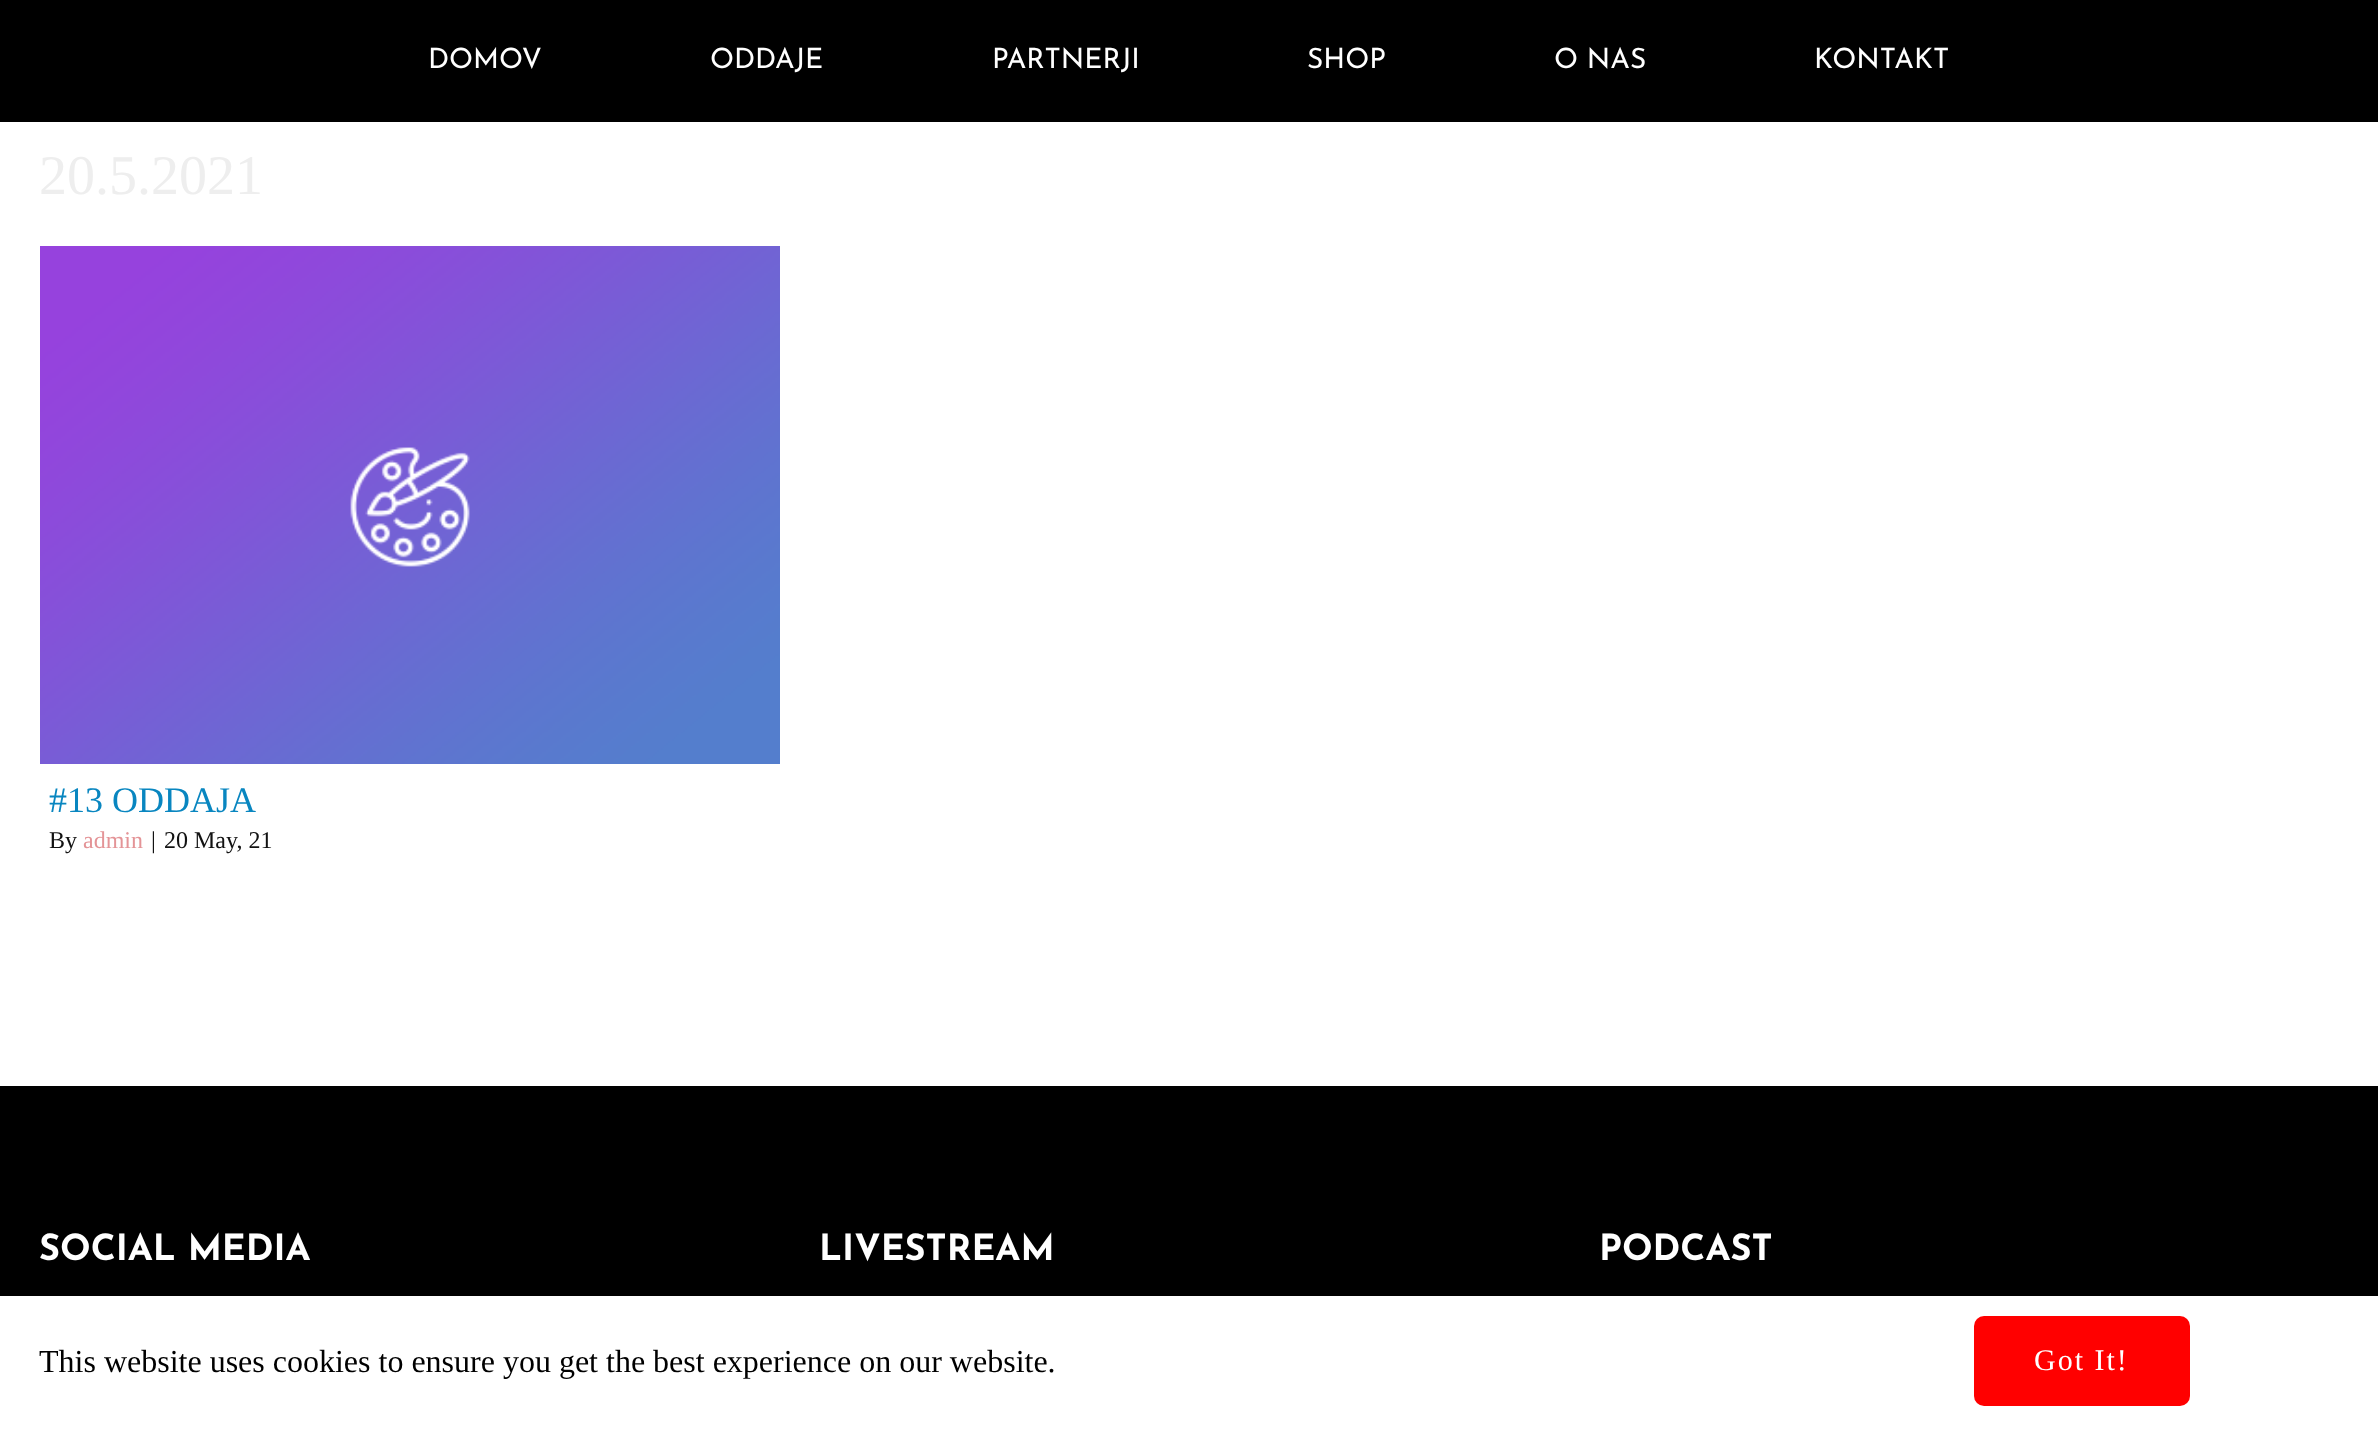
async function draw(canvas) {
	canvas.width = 2378;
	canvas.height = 1436;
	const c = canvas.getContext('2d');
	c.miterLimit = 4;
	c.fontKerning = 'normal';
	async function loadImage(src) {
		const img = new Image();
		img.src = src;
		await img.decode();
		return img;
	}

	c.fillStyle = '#fff';
	c.fillRect(0, 0, 2378, 1436);
	c.fillStyle = '#000';
	c.fillRect(0, 0, 2378, 122);
	c.font = '28px Josefin Sans';
	c.fillStyle = '#fff';
	for (const [text, x, y] of [
		['DOMOV', 428, 68],
		['ODDAJE', 710, 68],
		['PARTNERJI', 992, 68],
		['SHOP', 1307, 68],
		['O NAS', 1554, 68],
		['KONTAKT', 1814, 68],
	]) {
		c.fillText(text, x, y);
	}
	c.font = '56px Liberation Serif';
	c.fillStyle = '#eee';
	c.fillText('20.5.2021', 39, 194);
	c.drawImage(await loadImage('img1.png'), 40, 246, 740, 518);
	c.font = '36px Liberation Serif';
	c.fillStyle = '#0986c0';
	c.fillText('#13 ODDAJA', 49, 812);
	c.font = '24px Liberation Serif';
	c.fillStyle = '#121212';
	c.fillText('By', 49, 848);
	c.fillStyle = '#e49497';
	c.fillText('admin', 83, 848);
	c.fillStyle = '#121212';
	c.fillText('|', 151, 848);
	c.fillText('20 May, 21', 164, 848);
	c.fillStyle = '#000';
	c.fillRect(0, 1086, 2378, 210);
	c.font = 'bold 36px Josefin Sans';
	c.fillStyle = '#fff';
	for (const [text, x, y] of [
		['SOCIAL MEDIA', 39, 1260],
		['LIVESTREAM', 819, 1260],
		['PODCAST', 1599, 1260],
	]) {
		c.fillText(text, x, y);
	}
	c.font = '32px Liberation Serif';
	c.fillStyle = '#000';
	c.fillText('This website uses cookies to ensure you get the best experience on our website.', 39, 1372);
	c.fillStyle = '#f00';
	c.beginPath();
	c.roundRect(1974, 1316, 216, 90, 10);
	c.fill();
	c.letterSpacing = '2px';
	c.font = '30px Liberation Serif';
	c.fillStyle = '#fff';
	c.fillText('Got It!', 2034, 1370);
}

draw(document.querySelector('canvas'));
